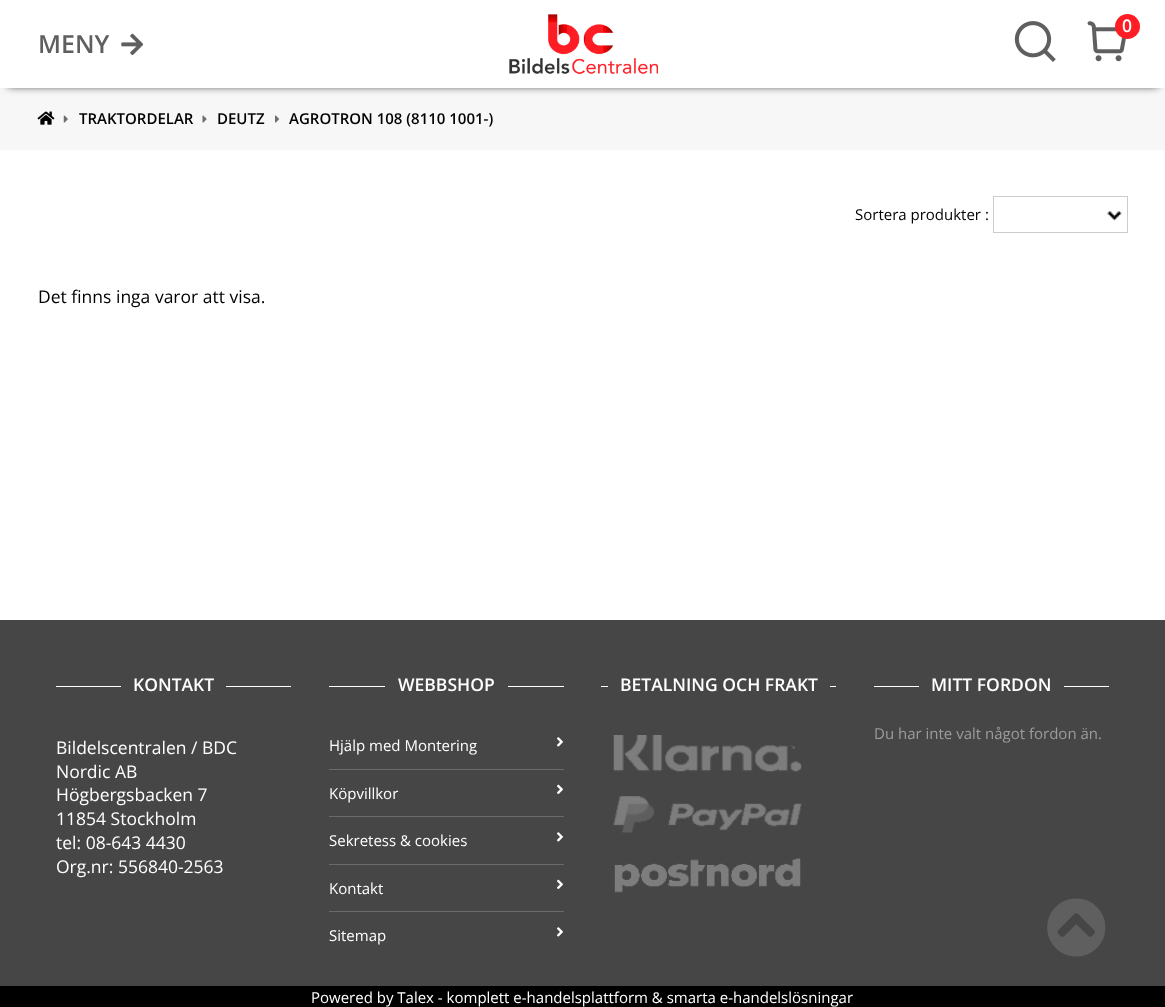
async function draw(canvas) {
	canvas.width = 1165;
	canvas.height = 1007;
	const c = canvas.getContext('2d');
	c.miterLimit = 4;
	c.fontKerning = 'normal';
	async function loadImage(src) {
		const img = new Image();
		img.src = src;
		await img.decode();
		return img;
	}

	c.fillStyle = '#fff';
	c.fillRect(0, 0, 1165, 1007);
	c.fillStyle = '#f7f7f7';
	c.fillRect(0, 88, 1165, 62);
	c.fillStyle = '#222';
	c.filter = 'blur(4px)';
	c.beginPath();
	c.rect(8, 14, 1150, 72);
	c.fill();
	c.filter = 'none';
	c.fillStyle = '#fff';
	c.fillRect(0, 5, 1165, 83);
	c.drawImage(await loadImage('img1.png'), 509, 14, 149, 60);
	c.drawImage(await loadImage('img2.png'), 1014, 21, 42, 41);
	c.drawImage(await loadImage('img3.png'), 1087, 21, 39, 41);
	c.fillStyle = '#ff1d25';
	c.beginPath();
	c.arc(1127.5, 26.5, 12.5, 0, 2 * Math.PI);
	c.fill();
	c.font = '600 17.5px Open Sans';
	c.fillStyle = '#fff';
	c.fillText('0', 1122, 32);
	c.font = '600 25px Open Sans';
	c.fillStyle = '#5f5f5f';
	c.fillText('MENY', 38, 53);
	c.drawImage(await loadImage('img4.png'), 121, 33, 23, 22);
	c.drawImage(await loadImage('img5.png'), 37, 111, 18, 14);
	c.drawImage(await loadImage('img6.png'), 63, 115, 5, 8);
	c.font = '600 15px Open Sans';
	c.fillStyle = '#000';
	c.fillText('TRAKTORDELAR', 79, 124);
	c.drawImage(await loadImage('img7.png'), 202, 115, 5, 8);
	c.fillText('DEUTZ', 217, 124);
	c.drawImage(await loadImage('img8.png'), 275, 115, 4, 8);
	c.fillText('AGROTRON 108 (8110 1001-)', 289, 124);
	c.font = '15px Open Sans';
	c.fillText('Sortera produkter :', 855, 220);
	c.drawImage(await loadImage('img9.png'), 1107, 211, 15, 10);
	c.strokeStyle = '#ccc';
	c.strokeRect(993.5, 196.5, 134, 36);
	c.font = '17.5px Open Sans';
	c.fillText('Det finns inga varor att visa.', 38, 303);
	c.fillStyle = '#464646';
	c.fillRect(0, 620, 1165, 366);
	c.drawImage(await loadImage('img10.png'), 1047, 898, 59, 59);
	c.fillStyle = '#fff';
	c.fillRect(56, 686, 235, 1);
	c.fillStyle = '#464646';
	c.fillRect(121, 686, 105, 1);
	c.font = '600 17.5px Open Sans';
	c.fillStyle = '#fff';
	c.fillText('KONTAKT', 133, 691);
	c.font = '17.5px Open Sans';
	for (const [text, x, y] of [
		['Bildelscentralen / BDC', 56, 754],
		['Nordic AB', 56, 778],
		['Högbergsbacken 7', 56, 801],
		['11854 Stockholm', 56, 825],
		['tel: 08-643 4430', 56, 849],
		['Org.nr: 556840-2563', 56, 873],
	]) {
		c.fillText(text, x, y);
	}
	c.fillRect(329, 686, 235, 1);
	c.fillStyle = '#464646';
	c.fillRect(385, 686, 123, 1);
	c.font = '600 17.5px Open Sans';
	c.fillStyle = '#fff';
	c.fillText('WEBBSHOP', 398, 691);
	c.font = '15px Open Sans';
	c.fillText('Hjälp med Montering', 329, 751);
	c.drawImage(await loadImage('img11.png'), 557, 737, 6, 10);
	c.fillStyle = '#6b6b6b';
	c.fillRect(329, 769, 235, 1);
	c.fillStyle = '#fff';
	c.fillText('Köpvillkor', 329, 799);
	c.drawImage(await loadImage('img12.png'), 557, 784, 6, 10);
	c.fillStyle = '#6b6b6b';
	c.fillRect(329, 816, 235, 1);
	c.fillStyle = '#fff';
	c.fillText('Sekretess & cookies', 329, 846);
	c.drawImage(await loadImage('img11.png'), 557, 832, 6, 10);
	c.fillStyle = '#6b6b6b';
	c.fillRect(329, 864, 235, 1);
	c.fillStyle = '#fff';
	c.fillText('Kontakt', 329, 894);
	c.drawImage(await loadImage('img12.png'), 557, 879, 6, 10);
	c.fillStyle = '#6b6b6b';
	c.fillRect(329, 911, 235, 1);
	c.fillStyle = '#fff';
	c.fillText('Sitemap', 329, 941);
	c.drawImage(await loadImage('img11.png'), 557, 927, 6, 10);
	c.fillRect(601, 686, 235, 1);
	c.fillStyle = '#464646';
	c.fillRect(608, 686, 222, 1);
	c.font = '600 17.5px Open Sans';
	c.fillStyle = '#fff';
	c.fillText('BETALNING OCH FRAKT', 620, 691);
	c.drawImage(await loadImage('img13.png'), 613, 735, 189, 37);
	c.drawImage(await loadImage('img14.png'), 613, 796, 189, 37);
	c.drawImage(await loadImage('img15.png'), 614, 858, 187, 35);
	c.fillRect(874, 686, 235, 1);
	c.fillStyle = '#464646';
	c.fillRect(919, 686, 145, 1);
	c.fillStyle = '#fff';
	c.fillText('MITT FORDON', 931, 691);
	c.font = '15px Open Sans';
	c.fillStyle = '#9c9c9c';
	c.fillText('Du har inte valt något fordon än.', 874, 739);
	c.fillStyle = '#000';
	c.fillRect(0, 986, 1165, 21);
	c.fillStyle = '#fff';
	c.fillText('Powered by Talex - komplett e-handelsplattform & smarta e-handelslösningar', 311, 1003);
}

draw(document.querySelector('canvas'));
